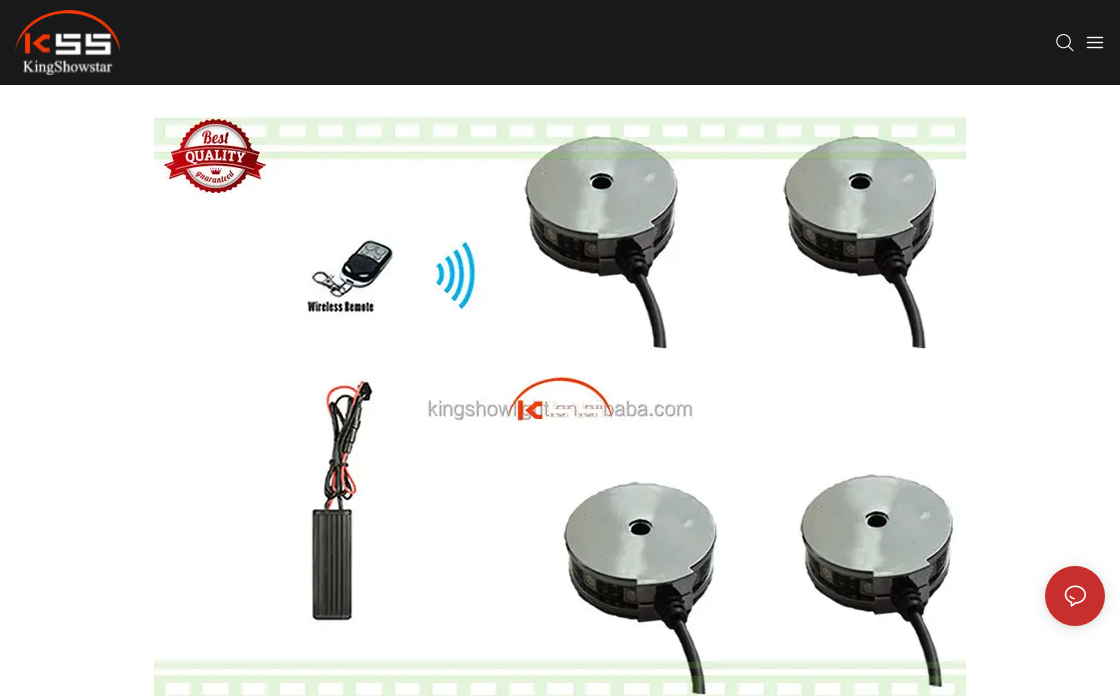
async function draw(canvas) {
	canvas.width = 1120;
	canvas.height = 696;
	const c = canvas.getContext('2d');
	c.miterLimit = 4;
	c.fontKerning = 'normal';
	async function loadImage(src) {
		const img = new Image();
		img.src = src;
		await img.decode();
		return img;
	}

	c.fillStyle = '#fff';
	c.fillRect(0, 0, 1120, 696);
	c.fillStyle = '#19191a';
	c.fillRect(0, 0, 1120, 85);
	c.drawImage(await loadImage('img1.png'), 15, 10, 106, 65);
	c.drawImage(await loadImage('img2.png'), 1056, 34, 18, 18);
	c.drawImage(await loadImage('img3.png'), 1086, 36, 18, 13);
	c.drawImage(await loadImage('img4.png'), 154, 113, 812, 583);
	c.fillStyle = '#0000001f';
	c.filter = 'blur(8px)';
	c.beginPath();
	c.roundRect(1045, 568, 60, 60, 30);
	c.fill();
	c.filter = 'none';
	c.fillStyle = '#0000000f';
	c.filter = 'blur(2px)';
	c.beginPath();
	c.roundRect(1045, 567, 60, 60, 30);
	c.fill();
	c.filter = 'none';
	c.fillStyle = '#c62f2d';
	c.beginPath();
	c.arc(1075, 596, 30, 0, 2 * Math.PI);
	c.fill();
	c.drawImage(await loadImage('img5.png'), 1064, 585, 22, 22);
}

draw(document.querySelector('canvas'));
